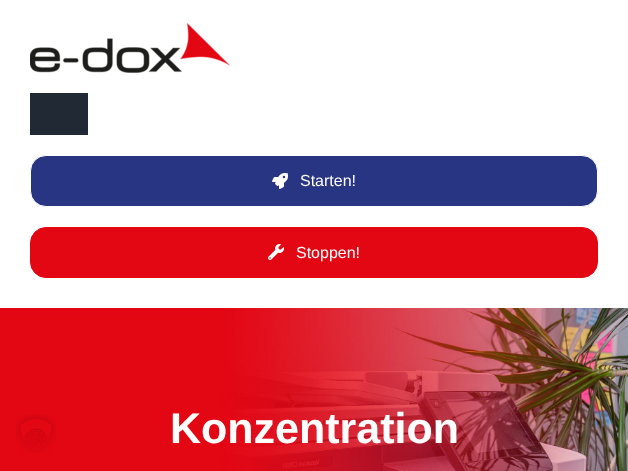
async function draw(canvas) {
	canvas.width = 628;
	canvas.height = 471;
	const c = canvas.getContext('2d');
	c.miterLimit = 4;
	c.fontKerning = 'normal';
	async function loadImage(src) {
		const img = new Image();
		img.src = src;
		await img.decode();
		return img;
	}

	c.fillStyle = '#fff';
	c.fillRect(0, 0, 628, 471);
	c.drawImage(await loadImage('img5.png'), 0, 308, 628, 163);
	c.drawImage(await loadImage('img1.png'), 16, 414, 40, 39);
	c.drawImage(await loadImage('img2.png'), 30, 23, 200, 50);
	c.fillStyle = '#212934';
	c.fillRect(30, 93, 58, 42);
	c.fillStyle = '#283583';
	c.beginPath();
	c.roundRect(30.5, 155.5, 567, 51, 15.5);
	c.fill();
	c.strokeStyle = '#fff';
	c.stroke();
	c.drawImage(await loadImage('img3.png'), 272, 173, 16, 16);
	c.font = '16px Liberation Sans';
	c.fillStyle = '#fff';
	c.fillText('Starten!', 300, 186);
	c.fillStyle = '#e30613';
	c.beginPath();
	c.roundRect(30.5, 227.5, 567, 50, 15.5);
	c.fill();
	c.strokeStyle = '#e30613';
	c.stroke();
	c.drawImage(await loadImage('img4.png'), 268, 244, 16, 16);
	c.fillStyle = '#fff';
	c.fillText('Stoppen!', 296, 258);
	c.font = 'bold 43px Liberation Sans';
	c.fillText('Konzentration', 170, 443);
}

draw(document.querySelector('canvas'));
